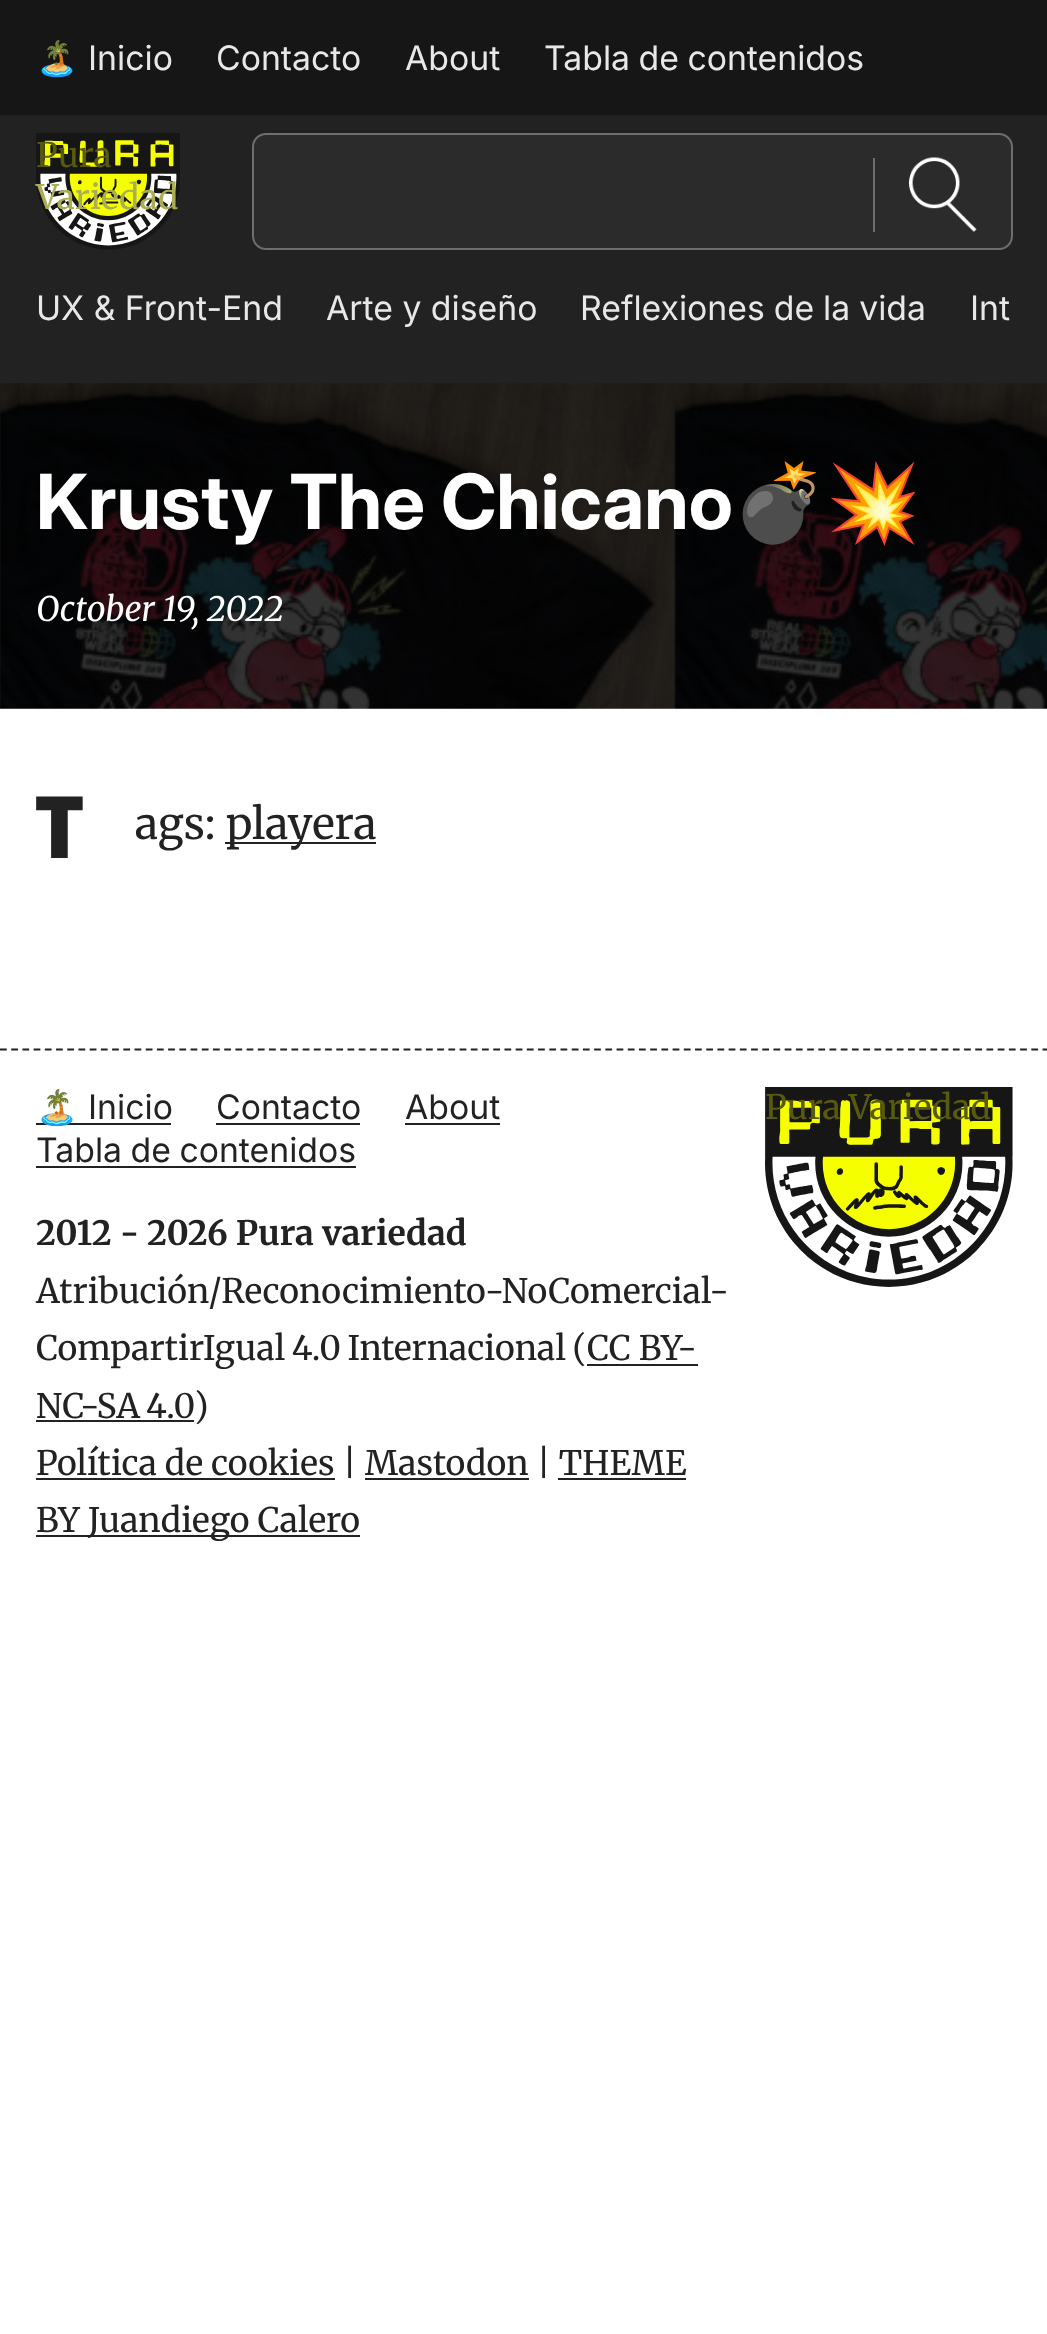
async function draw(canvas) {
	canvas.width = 1047;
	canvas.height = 2334;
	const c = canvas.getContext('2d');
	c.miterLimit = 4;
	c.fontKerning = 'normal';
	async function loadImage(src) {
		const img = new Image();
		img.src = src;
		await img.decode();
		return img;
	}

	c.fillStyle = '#fff';
	c.fillRect(0, 0, 1047, 2334);
	c.fillStyle = '#171616';
	c.fillRect(0, 0, 1047, 115);
	c.font = '33.75px Noto Color Emoji';
	c.fillStyle = '#e8e8e8';
	c.fillText('🏝️', 36, 70);
	c.font = '33.75px Inter';
	for (const [text, x, y] of [
		['Inicio', 88, 70],
		['Contacto', 216, 70],
		['About', 405, 70],
	]) {
		c.fillText(text, x, y);
	}
	c.wordSpacing = '-1px';
	c.fillText('Tabla de contenidos', 544, 70);
	c.fillStyle = '#222';
	c.fillRect(0, 115, 1047, 268);
	c.drawImage(await loadImage('img1.png'), 36, 133, 144, 117);
	c.wordSpacing = '0px';
	c.font = '33.75px Merriweather';
	c.fillStyle = '#585b0f';
	c.fillText('Pura', 36, 167);
	c.fillStyle = '#abae53';
	c.fillText('Variedad', 36, 209);
	c.fillStyle = '#2b2b2b';
	c.beginPath();
	c.roundRect(253, 134, 759, 115, 13);
	c.fill();
	c.strokeStyle = '#6f6d6d';
	c.lineWidth = 2;
	c.stroke();
	c.fillStyle = '#6f6d6d';
	c.fillRect(873, 158, 2, 74);
	c.drawImage(await loadImage('img2.png'), 909, 157, 68, 75);
	c.font = '33.75px Inter';
	c.fillStyle = '#e8e8e8';
	c.fillText('UX & Front-End', 36, 320);
	c.fillText('Arte y diseño', 326, 320);
	c.wordSpacing = '-0.5px';
	c.fillText('Reflexiones de la vida', 580, 320);
	c.wordSpacing = '0px';
	c.fillText('Int', 970, 320);
	c.drawImage(await loadImage('img3.png'), 0, 383, 1047, 326);
	c.font = 'bold 76px Inter';
	c.fillStyle = '#fff';
	c.fillText('Krusty The Chicano', 36, 529);
	c.font = 'bold 76px Noto Color Emoji';
	c.fillText('💣💥', 732, 529);
	c.font = 'italic 33.75px Merriweather';
	c.fillText('October 19, 2022', 36, 621);
	c.font = '900 86px Noto Sans';
	c.fillStyle = '#222';
	c.fillText('T', 34, 858);
	c.font = '43px Merriweather';
	c.fillText('ags:', 135, 839);
	c.fillRect(225, 842, 151, 2);
	c.fillText('playera', 226, 839);
	c.beginPath();
	c.moveTo(0, 1049.5);
	c.lineTo(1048.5, 1049.5);
	c.strokeStyle = '#222';
	c.lineWidth = 2.2;
	c.setLineDash([6.75, 4.46]);
	c.stroke();
	c.fillRect(36, 1123, 135, 2);
	c.font = '33.75px Noto Color Emoji';
	c.fillText('🏝️', 36, 1119);
	c.font = '33.75px Inter';
	c.fillText('Inicio', 88, 1119);
	c.fillText('Contacto', 216, 1119);
	c.fillRect(216, 1123, 144, 2);
	c.fillText('About', 405, 1119);
	c.fillRect(405, 1123, 95, 2);
	c.wordSpacing = '-1px';
	c.fillText('Tabla de contenidos', 36, 1162);
	c.fillRect(36, 1166, 320, 2);
	c.wordSpacing = '0px';
	c.font = 'bold 33.75px Merriweather';
	c.fillText('2012 - 2026 Pura variedad', 36, 1245);
	c.font = '33.75px Merriweather';
	c.fillText('Atribución/Reconocimiento-NoComercial-', 36, 1303);
	c.wordSpacing = '-1.5px';
	c.fillText('CompartirIgual 4.0 Internacional (', 36, 1360);
	c.wordSpacing = '0px';
	c.fillText('CC BY-', 587, 1360);
	c.fillRect(587, 1364, 111, 2);
	c.wordSpacing = '-2px';
	c.fillText('NC-SA 4.0', 36, 1418);
	c.fillRect(36, 1420, 158, 2);
	c.wordSpacing = '0px';
	c.fillText(')', 194, 1418);
	c.fillRect(36, 1478, 299, 2);
	c.fillText('Política de cookies | Mastodon | THEME', 36, 1475);
	c.fillRect(365, 1478, 164, 2);
	c.fillRect(36, 1535, 324, 2);
	c.fillText('BY Juandiego Calero', 36, 1532);
	c.fillRect(558, 1478, 128, 2);
	c.drawImage(await loadImage('img4.png'), 765, 1087, 248, 200);
	c.fillStyle = '#585b0f';
	c.fillText('Pura Variedad', 765, 1119);
}

draw(document.querySelector('canvas'));
